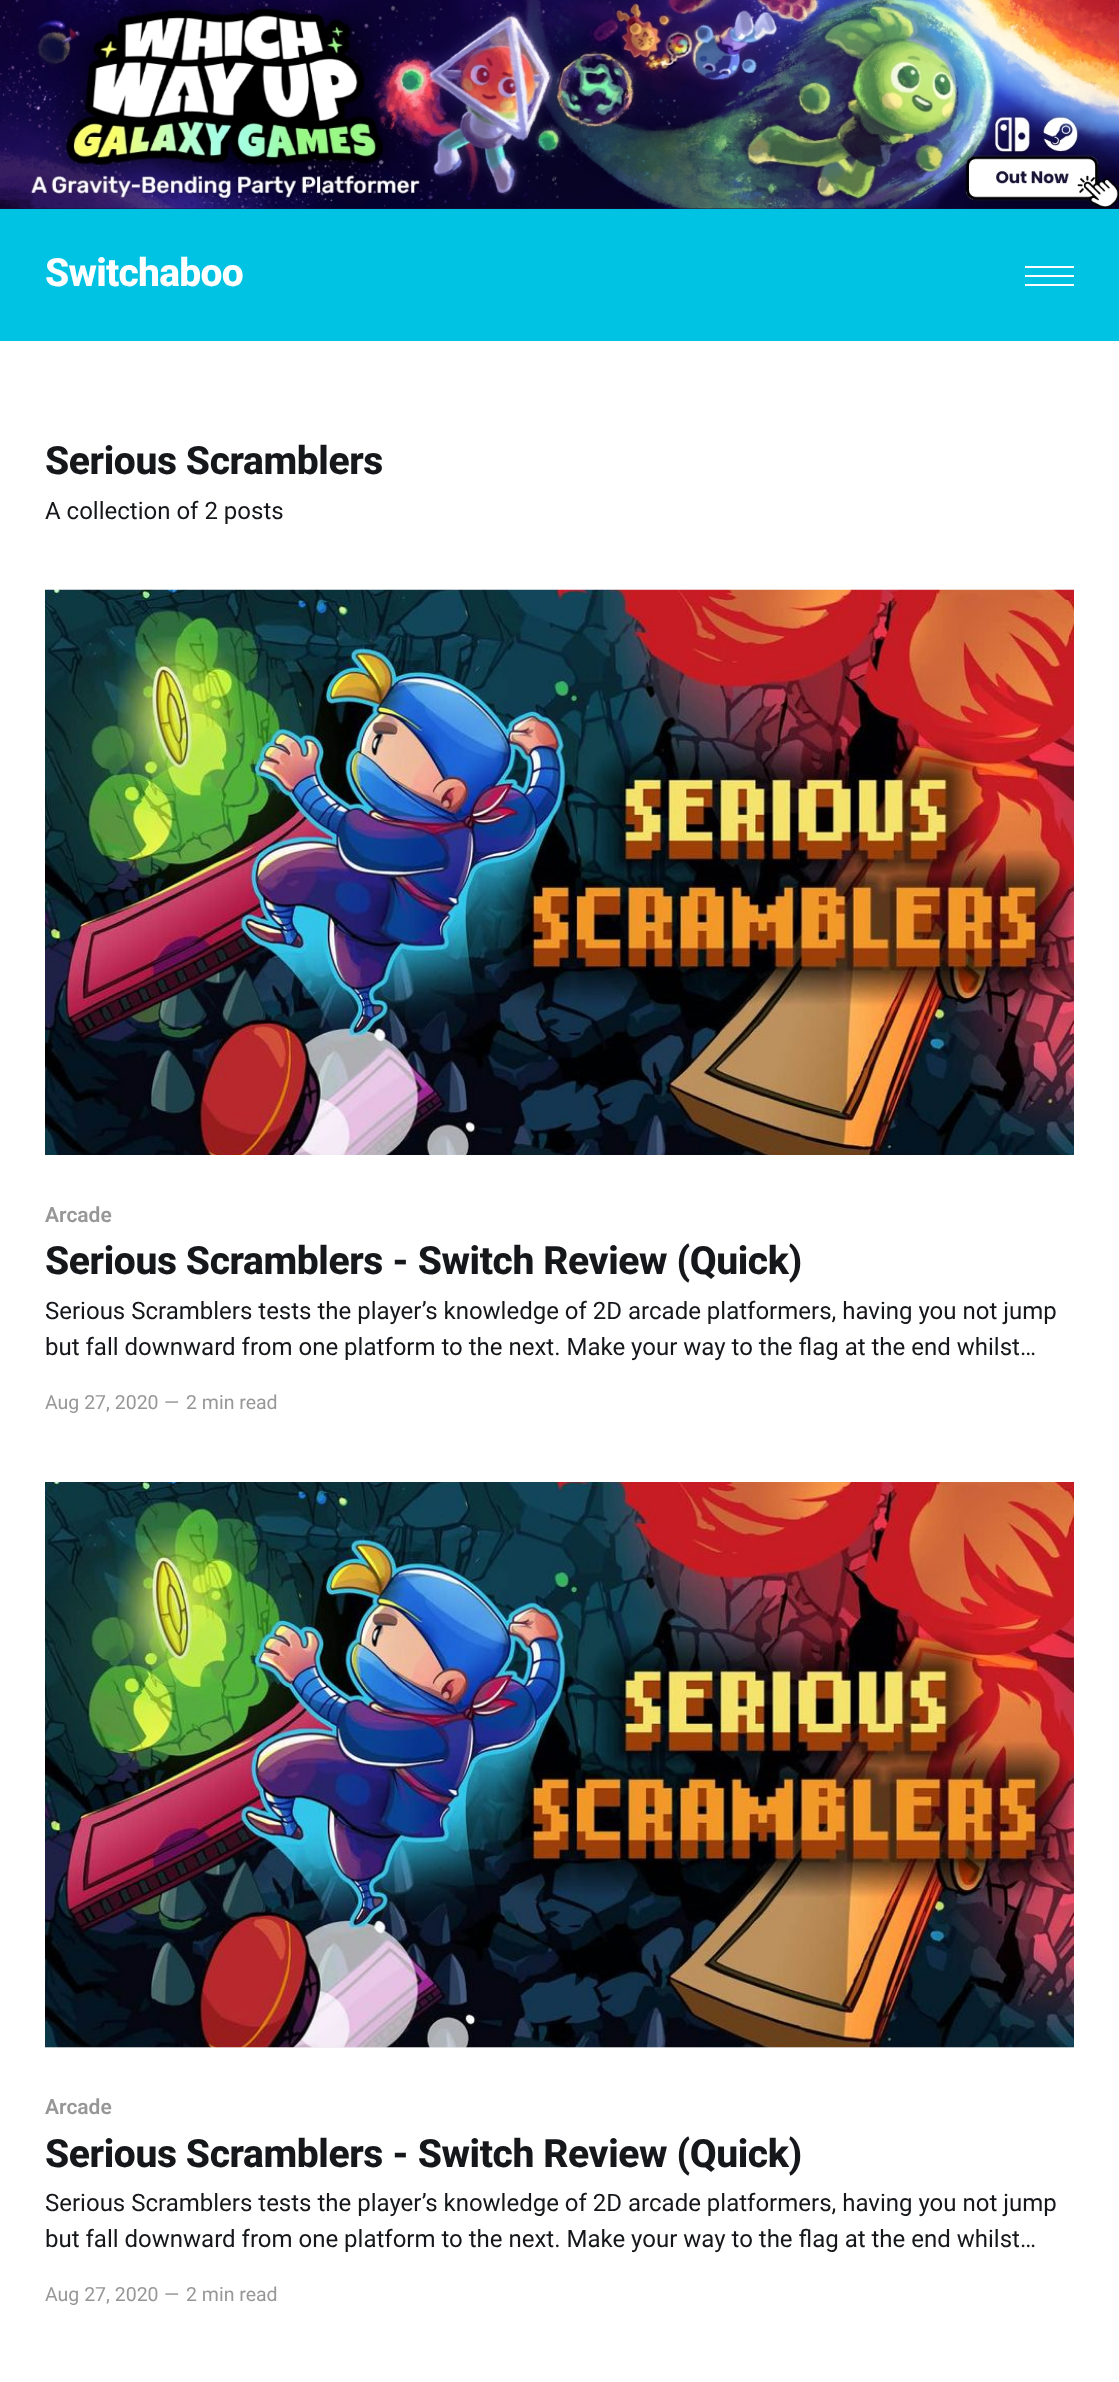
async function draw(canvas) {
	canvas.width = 1119;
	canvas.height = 2382;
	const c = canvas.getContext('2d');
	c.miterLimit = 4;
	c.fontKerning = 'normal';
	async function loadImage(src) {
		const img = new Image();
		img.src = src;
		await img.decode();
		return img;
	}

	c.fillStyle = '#fff';
	c.fillRect(0, 0, 1119, 2382);
	c.fillStyle = '#11193e';
	c.fillRect(0, 208, 1119, 1);
	c.drawImage(await loadImage('img1.png'), 0, 0, 1119, 209);
	c.fillStyle = '#00c3e3';
	c.fillRect(0, 209, 1119, 132);
	c.letterSpacing = '-0.75px';
	c.font = '800 39px Roboto';
	c.fillStyle = '#fff';
	c.fillText('Switchaboo', 45, 286);
	for (const [x, y, w, h, color] of [
		[1025, 266, 49, 2, '#fff'],
		[1025, 284, 49, 2, '#fff'],
		[1025, 275, 49, 2, '#fff'],
	]) {
		c.fillStyle = color;
		c.fillRect(x, y, w, h);
	}
	c.letterSpacing = '-0.4px';
	c.fillStyle = '#15171a';
	c.fillText('Serious Scramblers', 45, 474);
	c.letterSpacing = '0px';
	c.font = '24px Roboto';
	c.fillText('A collection of 2 posts', 45, 519);
	c.drawImage(await loadImage('img2.png'), 45, 589, 1029, 566);
	c.font = '600 21px Roboto';
	c.fillStyle = '#979797';
	c.fillText('Arcade', 45, 1222);
	c.letterSpacing = '-0.4px';
	c.font = '800 39px Roboto';
	c.fillStyle = '#15171a';
	c.fillText('Serious Scramblers - Switch Review (Quick)', 45, 1274);
	c.letterSpacing = '0px';
	c.font = '24px Roboto';
	c.fillText('Serious Scramblers tests the player’s knowledge of 2D arcade platformers, having you not jump', 45, 1319);
	c.fillText('but fall downward from one platform to the next. Make your way to the flag at the end whilst…', 45, 1355);
	c.font = '19.5px Roboto';
	c.fillStyle = '#979797';
	for (const [text, x, y] of [
		['Aug 27, 2020', 45, 1409],
		['—', 164, 1409],
		['2 min read', 186, 1409],
	]) {
		c.fillText(text, x, y);
	}
	c.fillStyle = '#f1f1f1';
	c.fillRect(45, 2047, 1029, 1);
	c.drawImage(await loadImage('img3.png'), 45, 1482, 1029, 566);
	c.font = '600 21px Roboto';
	c.fillStyle = '#979797';
	c.fillText('Arcade', 45, 2114);
	c.letterSpacing = '-0.4px';
	c.font = '800 39px Roboto';
	c.fillStyle = '#15171a';
	c.fillText('Serious Scramblers - Switch Review (Quick)', 45, 2167);
	c.letterSpacing = '0px';
	c.font = '24px Roboto';
	c.fillText('Serious Scramblers tests the player’s knowledge of 2D arcade platformers, having you not jump', 45, 2211);
	c.fillText('but fall downward from one platform to the next. Make your way to the flag at the end whilst…', 45, 2247);
	c.font = '19.5px Roboto';
	c.fillStyle = '#979797';
	for (const [text, x, y] of [
		['Aug 27, 2020', 45, 2301],
		['—', 164, 2301],
		['2 min read', 186, 2301],
	]) {
		c.fillText(text, x, y);
	}
}

draw(document.querySelector('canvas'));
